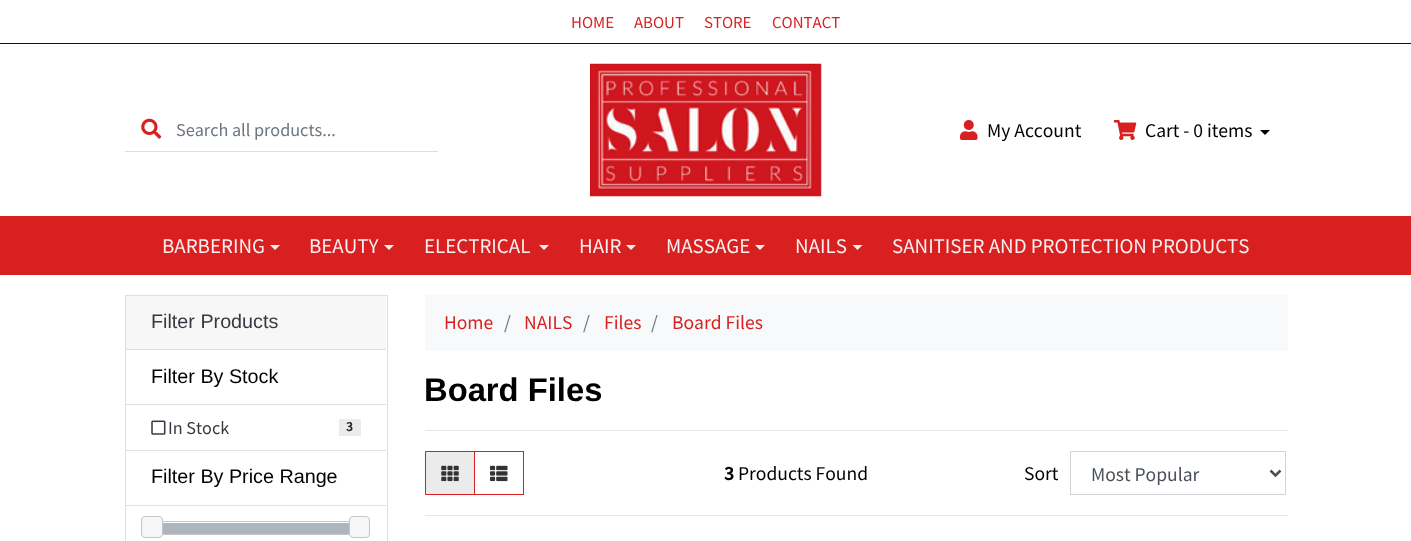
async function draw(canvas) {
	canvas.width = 1411;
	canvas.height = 541;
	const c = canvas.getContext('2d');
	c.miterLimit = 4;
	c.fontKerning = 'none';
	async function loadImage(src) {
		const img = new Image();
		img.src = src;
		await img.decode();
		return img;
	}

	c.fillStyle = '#fff';
	c.fillRect(0, 0, 1411, 541);
	c.fillStyle = '#121212';
	c.fillRect(0, 43, 1411, 1);
	c.font = '15px Noto Sans TC';
	c.fillStyle = '#d92020';
	for (const [text, x, y] of [
		['HOME', 571, 28],
		['ABOUT', 634, 28],
		['STORE', 704, 28],
		['CONTACT', 772, 28],
	]) {
		c.fillText(text, x, y);
	}
	c.fillStyle = '#ddd';
	c.fillRect(125, 151, 313, 1);
	c.drawImage(await loadImage('img1.png'), 141, 118, 21, 21);
	c.font = '16.25px Noto Sans TC';
	c.fillStyle = '#6c757d';
	c.fillText('Search all products...', 176, 136);
	c.drawImage(await loadImage('img2.png'), 590, 63, 232, 134);
	c.drawImage(await loadImage('img3.png'), 960, 120, 18, 20);
	c.font = '17.5px Noto Sans TC';
	c.fillStyle = '#000';
	c.fillText('My Account', 987, 137);
	c.drawImage(await loadImage('img4.png'), 1113, 120, 24, 20);
	c.fillText('Cart - 0 items', 1145, 137);
	c.beginPath();
	c.moveTo(1260, 130);
	c.lineTo(1270, 130);
	c.lineTo(1265, 135);
	c.closePath();
	c.fill();
	c.fillStyle = '#d92020';
	c.fillRect(0, 216, 1411, 59);
	c.font = '18.75px Noto Sans TC';
	c.fillStyle = '#fcefef';
	c.fillText('BARBERING', 162, 253);
	c.beginPath();
	c.moveTo(270, 245);
	c.lineTo(280, 245);
	c.lineTo(275, 250);
	c.closePath();
	c.fill();
	c.fillText('BEAUTY', 309, 253);
	c.beginPath();
	c.moveTo(384, 245);
	c.lineTo(394, 245);
	c.lineTo(389, 250);
	c.closePath();
	c.fill();
	c.fillText('ELECTRICAL', 424, 253);
	c.beginPath();
	c.moveTo(539, 245);
	c.lineTo(549, 245);
	c.lineTo(544, 250);
	c.closePath();
	c.fill();
	c.fillText('HAIR', 579, 253);
	c.beginPath();
	c.moveTo(626, 245);
	c.lineTo(636, 245);
	c.lineTo(631, 250);
	c.closePath();
	c.fill();
	c.fillText('MASSAGE', 666, 253);
	c.beginPath();
	c.moveTo(755, 245);
	c.lineTo(765, 245);
	c.lineTo(760, 250);
	c.closePath();
	c.fill();
	c.fillText('NAILS', 795, 253);
	c.beginPath();
	c.moveTo(852.5, 245);
	c.lineTo(862.5, 245);
	c.lineTo(857.5, 250);
	c.closePath();
	c.fill();
	c.fillText('SANITISER AND PROTECTION PRODUCTS', 892, 253);
	c.strokeStyle = '#dfdfdf';
	c.strokeRect(125.5, 295.5, 262, 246);
	c.fillStyle = '#f7f7f7';
	c.fillRect(126, 296, 260, 53);
	c.fillStyle = '#dee2e6';
	c.fillRect(126, 349, 260, 1);
	c.font = '19.75px Liberation Sans';
	c.fillStyle = '#343a40';
	c.fillText('Filter Products', 151, 328);
	c.fillStyle = '#000';
	c.fillText('Filter By Stock', 151, 383);
	c.fillStyle = '#dfdfdf';
	c.fillRect(126, 404, 260, 1);
	c.drawImage(await loadImage('img5.png'), 151, 420, 15, 15);
	c.font = '16.25px Noto Sans TC';
	c.fillStyle = '#343a40';
	c.fillText('In Stock', 168, 434);
	c.fillStyle = '#ebebeb';
	c.fillRect(339, 419, 22, 17);
	c.font = 'bold 12px Noto Sans TC';
	c.fillStyle = '#212529';
	c.fillText('3', 346, 431);
	c.fillStyle = '#dfdfdf';
	c.fillRect(126, 450, 260, 1);
	c.font = '19.75px Liberation Sans';
	c.fillStyle = '#000';
	c.fillText('Filter By Price Range', 151, 483);
	c.fillStyle = '#dfdfdf';
	c.fillRect(126, 505, 260, 1);
	c.strokeStyle = '#c5c5c5';
	c.strokeRect(151.5, 521.5, 209, 13);
	c.fillStyle = '#f6f6f6';
	c.beginPath();
	c.roundRect(141.5, 516.5, 21, 21, 3.5);
	c.fill();
	c.stroke();
	c.fillStyle = '#adb5bd';
	c.fillRect(163, 523, 186, 11);
	c.fillStyle = '#f6f6f6';
	c.beginPath();
	c.roundRect(349.5, 516.5, 20, 21, 3.5);
	c.fill();
	c.stroke();
	c.fillStyle = '#f8f9fa';
	c.fillRect(425, 295, 863, 56);
	c.font = '17.5px Noto Sans TC';
	c.fillStyle = '#d92020';
	c.fillText('Home', 444, 329);
	c.fillStyle = '#6c757d';
	c.fillText('/', 504, 329);
	c.fillStyle = '#d92020';
	c.fillText('NAILS', 524, 329);
	c.fillStyle = '#6c757d';
	c.fillText('/', 583, 329);
	c.fillStyle = '#d92020';
	c.fillText('Files', 604, 329);
	c.fillStyle = '#6c757d';
	c.fillText('/', 651, 329);
	c.fillStyle = '#d92020';
	c.fillText('Board Files', 672, 329);
	c.font = 'bold 32.75px Liberation Sans';
	c.fillStyle = '#000';
	c.fillText('Board Files', 424, 401);
	c.fillStyle = '#e6e6e6';
	c.fillRect(425, 430, 863, 1);
	c.strokeStyle = '#d92020';
	c.strokeRect(474.5, 451.5, 49, 43);
	c.fillStyle = '#ebebeb';
	c.beginPath();
	c.rect(425.5, 451.5, 49, 43);
	c.fill();
	c.strokeStyle = '#d71e1e';
	c.stroke();
	c.drawImage(await loadImage('img6.png'), 441, 465, 18, 17);
	c.drawImage(await loadImage('img7.png'), 490, 465, 18, 17);
	c.font = 'bold 17.5px Noto Sans TC';
	c.fillStyle = '#000';
	c.fillText('3', 724, 480);
	c.font = '17.5px Noto Sans TC';
	c.fillText('Products Found', 738, 480);
	c.fillText('Sort', 1024, 480);
	c.strokeStyle = '#ced4da';
	c.strokeRect(1070.5, 451.5, 215, 43);
	c.beginPath();
	c.moveTo(1270.5, 470.5);
	c.lineTo(1275.5, 475.5);
	c.lineTo(1280.5, 470.5);
	c.strokeStyle = '#495057';
	c.lineWidth = 2.5;
	c.stroke();
	c.fillStyle = '#495057';
	c.fillText('Most Popular', 1091, 481);
	c.fillStyle = '#e6e6e6';
	c.fillRect(425, 515, 863, 1);
}

draw(document.querySelector('canvas'));
